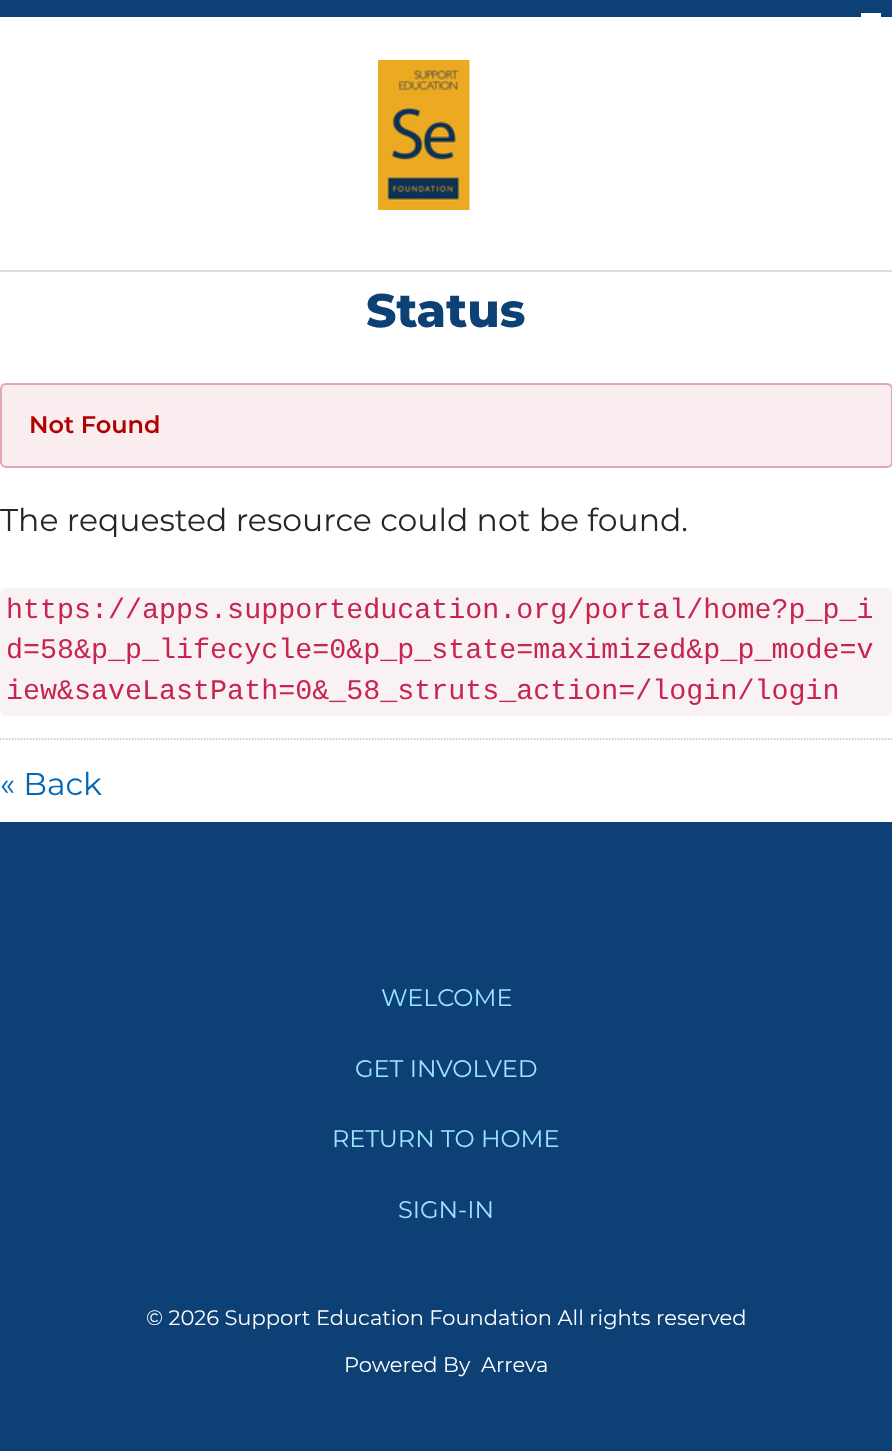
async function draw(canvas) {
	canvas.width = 892;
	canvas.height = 1451;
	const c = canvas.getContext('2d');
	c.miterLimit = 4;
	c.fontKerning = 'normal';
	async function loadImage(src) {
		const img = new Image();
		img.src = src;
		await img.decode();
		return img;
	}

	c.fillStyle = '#fff';
	c.fillRect(0, 0, 892, 1451);
	for (const [x, y, w, h, color] of [
		[0, 270, 892, 2, '#ddd'],
		[0, 0, 892, 17, '#0d4176'],
		[861, 13, 20, 4, '#fff'],
	]) {
		c.fillStyle = color;
		c.fillRect(x, y, w, h);
	}
	c.drawImage(await loadImage('img1.png'), 378, 60, 92, 150);
	c.font = '800 47px Montserrat';
	c.fillStyle = '#0d4176';
	c.fillText('Status', 366, 327);
	c.fillStyle = '#f9edef';
	c.beginPath();
	c.roundRect(1, 384, 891, 83, 5);
	c.fill();
	c.strokeStyle = '#e3a4b3';
	c.lineWidth = 2;
	c.stroke();
	c.font = '600 24px Montserrat';
	c.fillStyle = '#b20000';
	c.fillText('Not Found', 29, 433);
	c.font = '31.5px Montserrat';
	c.fillStyle = '#262626';
	c.fillText('The requested resource could not be found.', 0, 531);
	c.fillStyle = '#f9f2f4';
	c.beginPath();
	c.roundRect(0, 588, 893, 128, 6);
	c.fill();
	c.font = '28.35px Liberation Mono';
	c.fillStyle = '#c7254e';
	for (const [text, x, y] of [
		['https://apps.supporteducation.org/portal/home?p_p_i', 6, 618],
		['d=58&p_p_lifecycle=0&p_p_state=maximized&p_p_mode=v', 6, 658],
		['iew&saveLastPath=0&_58_struts_action=/login/login', 6, 699],
	]) {
		c.fillText(text, x, y);
	}
	c.beginPath();
	c.moveTo(0, 739);
	c.lineTo(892.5, 739);
	c.strokeStyle = '#bfbfbf';
	c.lineWidth = 1.5;
	c.setLineDash([1.5, 1.5]);
	c.stroke();
	c.font = '31.5px Montserrat';
	c.fillStyle = '#0067b8';
	c.fillText('« Back', 0, 795);
	c.fillStyle = '#0d4176';
	c.fillRect(0, 822, 892, 629);
	c.font = '24px Montserrat';
	c.fillStyle = '#99e5ff';
	for (const [text, x, y] of [
		['WELCOME', 381, 1006],
		['GET INVOLVED', 355, 1077],
		['RETURN TO HOME', 332, 1147],
		['SIGN-IN', 398, 1218],
	]) {
		c.fillText(text, x, y);
	}
	c.font = '21px Montserrat';
	c.fillStyle = '#fff';
	for (const [text, x, y] of [
		['© 2026 Support Education Foundation All rights reserved', 146, 1325],
		['Powered By', 344, 1372],
		['Arreva', 481, 1372],
	]) {
		c.fillText(text, x, y);
	}
}

draw(document.querySelector('canvas'));
